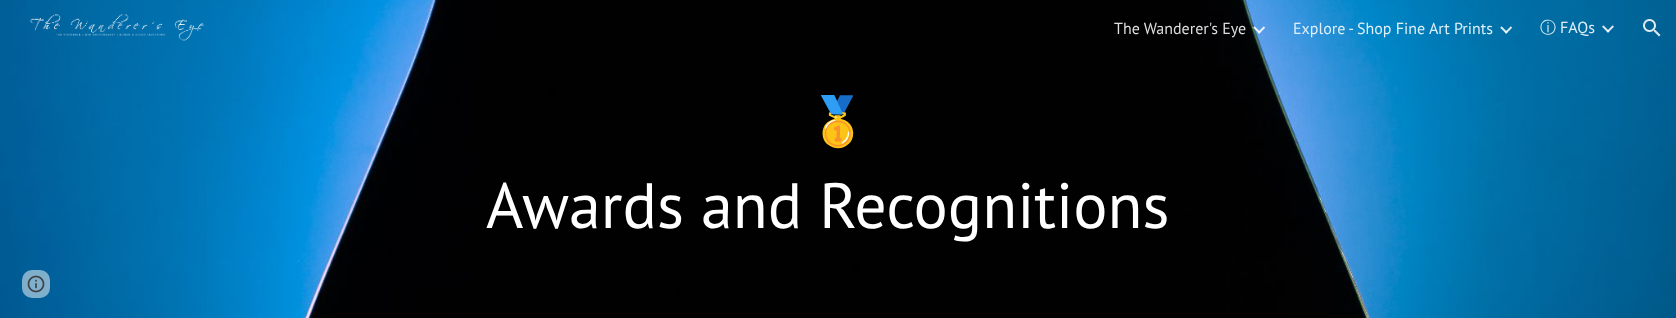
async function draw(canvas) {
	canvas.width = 1676;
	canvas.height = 318;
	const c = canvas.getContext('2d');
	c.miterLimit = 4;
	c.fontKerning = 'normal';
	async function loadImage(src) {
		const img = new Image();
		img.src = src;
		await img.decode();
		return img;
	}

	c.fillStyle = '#fff';
	c.fillRect(0, 0, 1676, 318);
	c.drawImage(await loadImage('img6.png'), 0, 0, 1676, 318);
	c.drawImage(await loadImage('img1.png'), 30, 14, 175, 27);
	c.font = '16px PT Sans';
	c.fillStyle = '#dedede';
	c.fillText('The Wanderer\'s Eye', 1114, 34);
	c.drawImage(await loadImage('img2.png'), 1253, 26, 13, 8);
	c.fillStyle = '#e0eff7';
	c.fillText('Explore - Shop Fine Art Prints', 1293, 34);
	c.drawImage(await loadImage('img3.png'), 1500, 26, 13, 8);
	c.font = '500 16px WenQuanYi Zen Hei';
	c.fillText('ⓘ', 1540, 33);
	c.font = '16px PT Sans';
	c.fillText('FAQs', 1560, 33);
	c.drawImage(await loadImage('img4.png'), 1602, 25, 12, 8);
	c.drawImage(await loadImage('img5.png'), 1643, 19, 18, 18);
	c.font = 'bold 48px Noto Color Emoji';
	c.fillStyle = '#f1c232';
	c.fillText('🥇', 808, 138);
	c.font = '64px PT Sans';
	c.fillStyle = '#fff';
	c.fillText('Awards and Recognitions', 486, 228);
	c.fillStyle = '#ffffff80';
	c.beginPath();
	c.roundRect(22, 270, 28, 28, 10);
	c.fill();
	c.drawImage(await loadImage('img7.png'), 27, 275, 18, 18);
}

draw(document.querySelector('canvas'));
